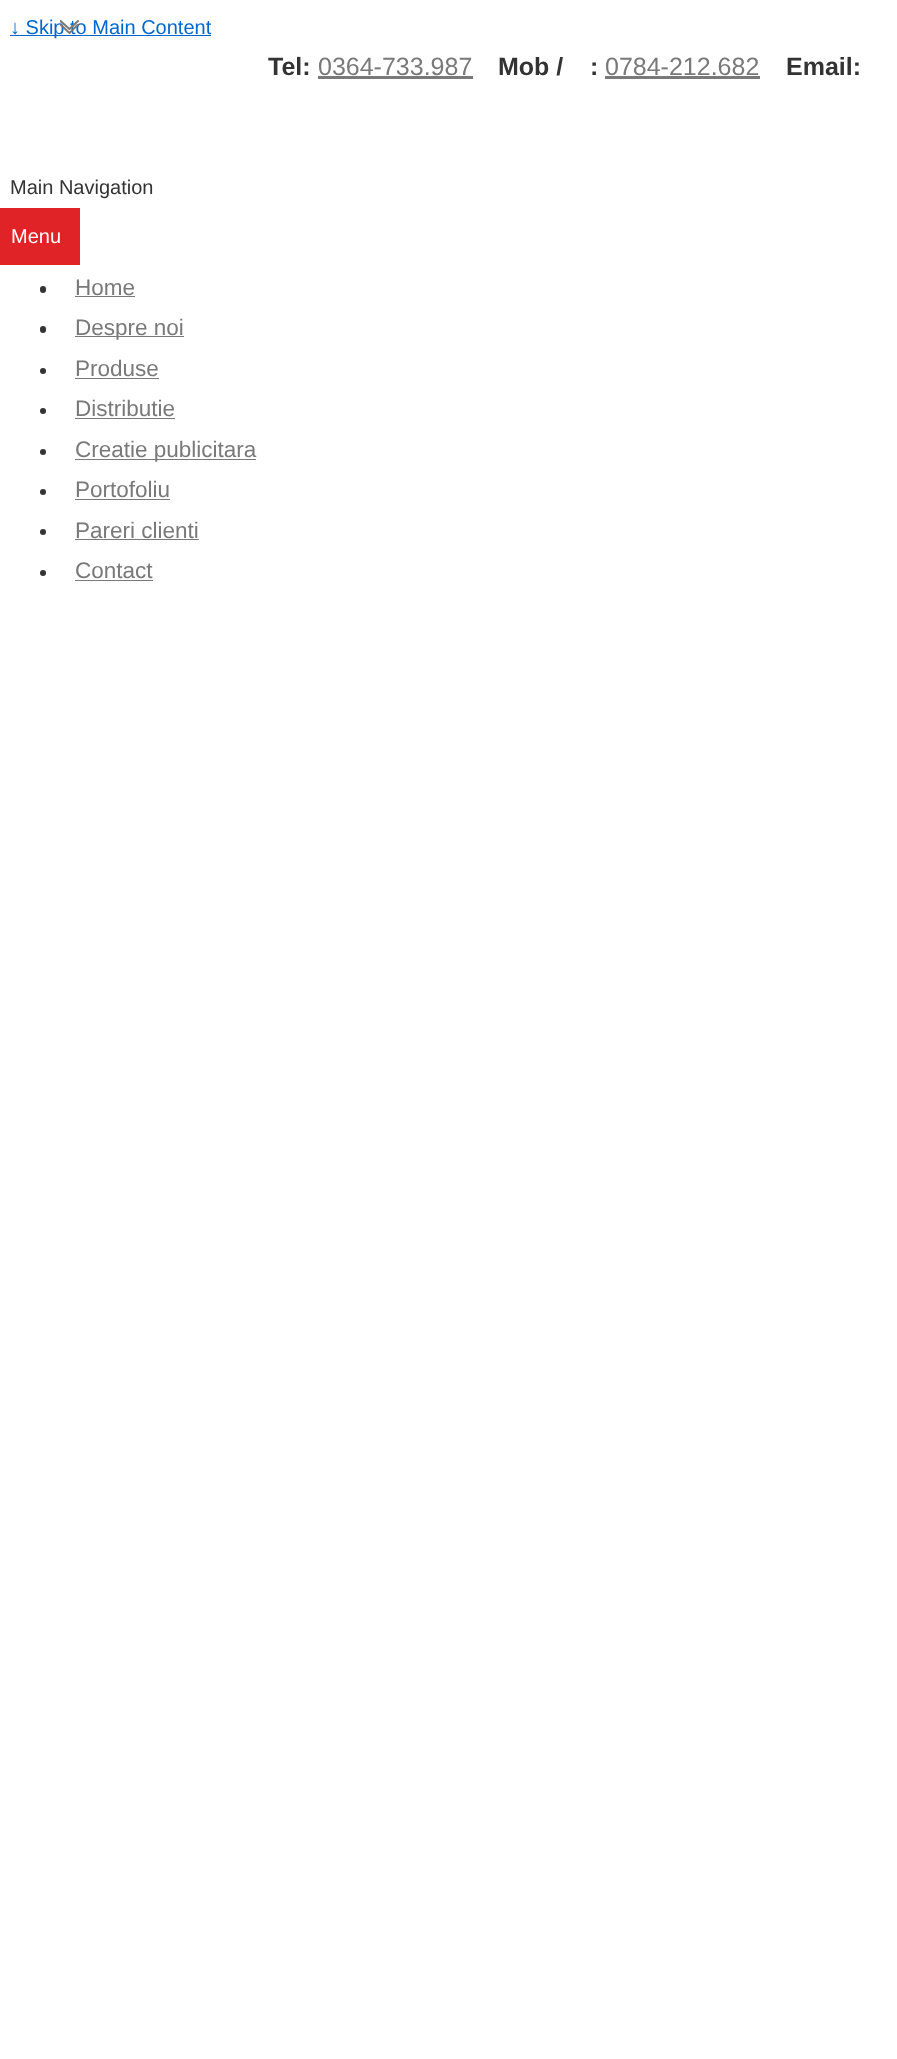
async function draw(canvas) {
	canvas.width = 897;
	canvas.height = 2059;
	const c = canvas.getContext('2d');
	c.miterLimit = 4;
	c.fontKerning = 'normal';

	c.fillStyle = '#fff';
	c.fillRect(0, 0, 897, 2059);
	c.fillStyle = '#06c';
	c.fillRect(10, 35, 201, 1);
	c.font = '20px Liberation Sans';
	c.fillText('↓ Skip to Main Content', 10, 34);
	c.font = 'bold 25px Liberation Sans';
	c.fillStyle = '#333';
	c.fillText('Tel:', 268, 75);
	c.font = '25px Liberation Sans';
	c.fillStyle = '#797979';
	c.fillText('0364-733.987', 318, 75);
	c.fillRect(318, 76, 155, 3);
	c.font = 'bold 25px Liberation Sans';
	c.fillStyle = '#333';
	c.fillText('Mob /', 498, 75);
	c.fillText(':', 590, 75);
	c.font = '25px Liberation Sans';
	c.fillStyle = '#797979';
	c.fillText('0784-212.682', 605, 75);
	c.fillRect(605, 76, 155, 3);
	c.font = 'bold 25px Liberation Sans';
	c.fillStyle = '#333';
	c.fillText('Email:', 786, 75);
	c.font = '20px Liberation Sans';
	c.fillText('Main Navigation', 10, 194);
	c.fillStyle = '#df2326';
	c.fillRect(0, 208, 80, 57);
	c.fillStyle = '#fff';
	c.fillText('Menu', 11, 243);
	c.fillStyle = '#333';
	c.beginPath();
	c.roundRect(40, 286, 6, 7, 3);
	c.fill();
	c.font = '22.5px Liberation Sans';
	c.fillStyle = '#797979';
	c.fillText('Home', 75, 295);
	c.fillRect(75, 296, 60, 1);
	c.fillStyle = '#333';
	c.beginPath();
	c.roundRect(40, 326, 6, 7, 3);
	c.fill();
	c.fillStyle = '#797979';
	c.fillRect(75, 336, 109, 1);
	c.fillText('Despre noi', 75, 335);
	c.save();
	c.beginPath();
	c.rect(60, 24, 19, 10);
	c.clip();
	c.beginPath();
	c.moveTo(60.5, 24.5);
	c.lineTo(69.5, 33);
	c.lineTo(78, 24.5);
	c.strokeStyle = '#797979';
	c.lineWidth = 2;
	c.lineCap = 'round';
	c.stroke();
	c.restore();
	c.save();
	c.beginPath();
	c.rect(60, 20, 19, 10);
	c.clip();
	c.beginPath();
	c.moveTo(60.5, 21);
	c.lineTo(69.5, 29);
	c.lineTo(78, 21);
	c.strokeStyle = '#797979';
	c.lineWidth = 2;
	c.lineCap = 'round';
	c.stroke();
	c.restore();
	c.fillStyle = '#333';
	c.beginPath();
	c.arc(43, 371, 3, 0, 2 * Math.PI);
	c.fill();
	c.fillStyle = '#797979';
	c.fillText('Produse', 75, 376);
	c.fillRect(75, 378, 84, 1);
	c.fillStyle = '#333';
	c.beginPath();
	c.arc(43, 411, 3, 0, 2 * Math.PI);
	c.fill();
	c.fillStyle = '#797979';
	c.fillText('Distributie', 75, 416);
	c.fillRect(75, 418, 100, 1);
	c.fillStyle = '#333';
	c.beginPath();
	c.arc(43, 452, 3, 0, 2 * Math.PI);
	c.fill();
	c.fillStyle = '#797979';
	c.fillRect(75, 459, 181, 1);
	c.fillText('Creatie publicitara', 75, 457);
	c.fillStyle = '#333';
	c.beginPath();
	c.arc(43, 492, 3, 0, 2 * Math.PI);
	c.fill();
	c.fillStyle = '#797979';
	c.fillText('Portofoliu', 75, 497);
	c.fillRect(75, 499, 95, 1);
	c.fillStyle = '#333';
	c.beginPath();
	c.arc(43, 532, 3, 0, 2 * Math.PI);
	c.fill();
	c.fillStyle = '#797979';
	c.fillText('Pareri clienti', 75, 538);
	c.fillRect(75, 539, 124, 1);
	c.fillStyle = '#333';
	c.beginPath();
	c.arc(43, 573, 3, 0, 2 * Math.PI);
	c.fill();
	c.fillStyle = '#797979';
	c.fillText('Contact', 75, 578);
	c.fillRect(75, 580, 78, 1);
}

draw(document.querySelector('canvas'));
